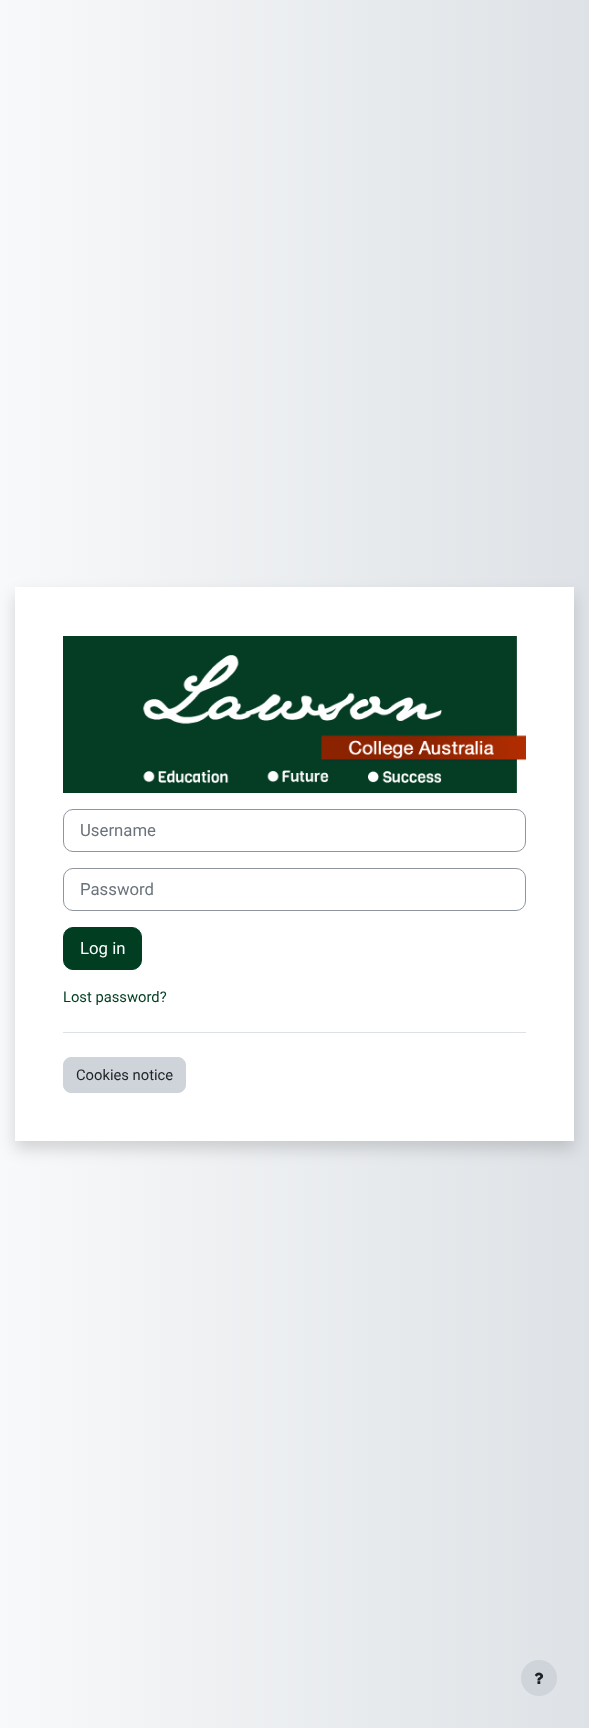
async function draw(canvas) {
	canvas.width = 589;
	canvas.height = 1728;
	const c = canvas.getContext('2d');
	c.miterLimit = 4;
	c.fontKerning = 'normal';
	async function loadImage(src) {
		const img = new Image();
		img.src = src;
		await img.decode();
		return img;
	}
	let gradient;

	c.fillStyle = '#fff';
	c.fillRect(0, 0, 589, 1728);
	gradient = c.createLinearGradient(0, 864, 589, 864);
	gradient.addColorStop(0, '#f8f9fa');
	gradient.addColorStop(1, '#dee2e6');
	c.fillStyle = gradient;
	c.fillRect(0, 0, 589, 1728);
	c.fillStyle = '#00000026';
	c.filter = 'blur(8px)';
	c.beginPath();
	c.rect(15, 595, 559, 554);
	c.fill();
	c.filter = 'none';
	c.fillStyle = '#fff';
	c.fillRect(15, 587, 559, 554);
	c.drawImage(await loadImage('img1.png'), 63, 636, 463, 157);
	c.beginPath();
	c.roundRect(63.5, 809.5, 462, 42, 9.5);
	c.strokeStyle = '#8f959e';
	c.stroke();
	c.font = '16.75px Roboto';
	c.fillStyle = '#6a737b';
	c.fillText('Username', 80, 836);
	c.beginPath();
	c.roundRect(63.5, 868.5, 462, 42, 9.5);
	c.stroke();
	c.fillText('Password', 80, 895);
	c.fillStyle = '#003d21';
	c.beginPath();
	c.roundRect(63.5, 927.5, 78, 42, 9.5);
	c.fill();
	c.strokeStyle = '#003d21';
	c.stroke();
	c.fillStyle = '#fff';
	c.fillText('Log in', 80, 954);
	c.font = '14.75px Roboto';
	c.fillStyle = '#003d21';
	c.fillText('Lost password?', 63, 1002);
	c.fillStyle = '#dee2e6';
	c.fillRect(63, 1032, 463, 1);
	c.fillStyle = '#ced4da';
	c.beginPath();
	c.roundRect(63.5, 1057.5, 122, 35, 7.5);
	c.fill();
	c.strokeStyle = '#ced4da';
	c.stroke();
	c.fillStyle = '#1d2125';
	c.fillText('Cookies notice', 76, 1080);
	c.fillStyle = '#ced4da';
	c.beginPath();
	c.arc(539, 1678, 18, 0, 2 * Math.PI);
	c.fill();
	c.drawImage(await loadImage('img2.png'), 534, 1672, 10, 12);
}

draw(document.querySelector('canvas'));
